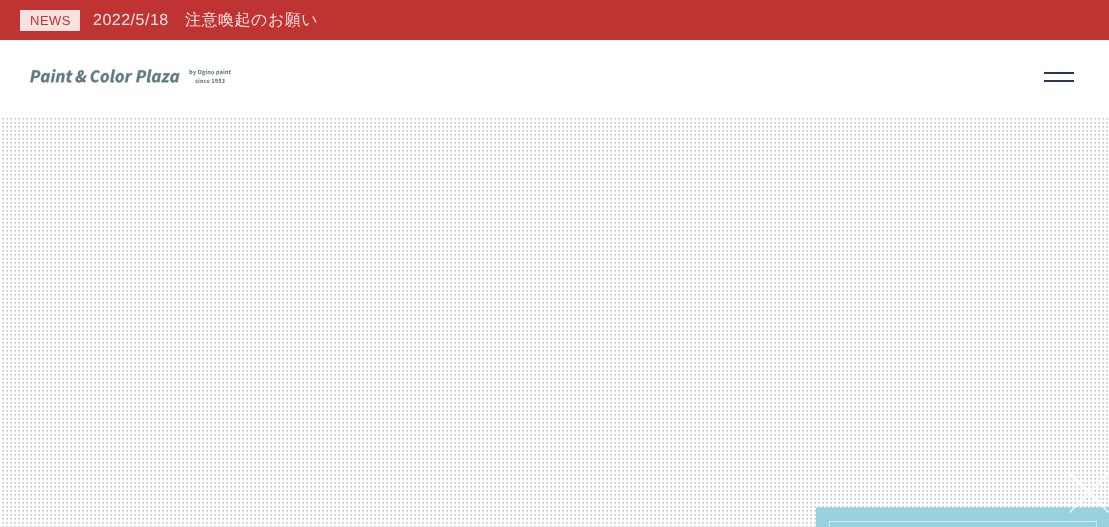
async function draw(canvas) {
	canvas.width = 1109;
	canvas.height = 527;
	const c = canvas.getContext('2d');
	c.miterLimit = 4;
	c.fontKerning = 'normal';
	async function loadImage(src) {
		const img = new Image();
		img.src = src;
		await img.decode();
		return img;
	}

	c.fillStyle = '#fff';
	c.fillRect(0, 0, 1109, 527);
	c.fillStyle = '#c03333';
	c.fillRect(0, 0, 1109, 40);
	c.fillStyle = '#f7e2e2';
	c.fillRect(20, 10, 60, 21);
	c.letterSpacing = '0.5px';
	c.font = '13px Liberation Sans';
	c.fillStyle = '#c03333';
	c.fillText('NEWS', 30, 25);
	c.font = '16px Liberation Sans';
	c.fillStyle = '#f7e2e2';
	c.fillText('2022/5/18', 93, 25);
	c.font = '500 16px WenQuanYi Zen Hei';
	c.fillText('注意喚起のお願い', 185, 25);
	c.drawImage(await loadImage('img1.png'), 30, 69, 201, 14);
	c.fillStyle = '#2c3954';
	c.fillRect(1044, 72, 30, 2);
	c.fillRect(1044, 80, 30, 2);
	c.drawImage(await loadImage('img2.png'), 2, 118, 1106, 409);
	c.drawImage(await loadImage('img3.png'), 816, 507, 293, 20);
	c.beginPath();
	c.moveTo(1069.5, 473.5);
	c.lineTo(1108.5, 512.5);
	c.moveTo(1108.5, 473.5);
	c.lineTo(1069.5, 512.5);
	c.strokeStyle = '#fff';
	c.lineWidth = 1.1;
	c.stroke();
}

draw(document.querySelector('canvas'));
